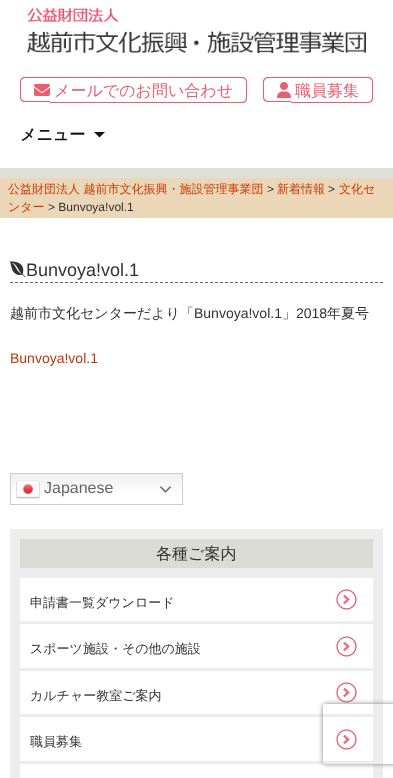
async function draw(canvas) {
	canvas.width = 393;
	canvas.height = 778;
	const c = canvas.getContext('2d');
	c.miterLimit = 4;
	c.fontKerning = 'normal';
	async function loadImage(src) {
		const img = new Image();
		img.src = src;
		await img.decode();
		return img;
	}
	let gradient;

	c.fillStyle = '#fff';
	c.fillRect(0, 0, 393, 778);
	c.fillStyle = '#dfdfd9';
	c.fillRect(0, 168, 393, 10);
	c.drawImage(await loadImage('img1.png'), 27, 8, 339, 45);
	c.fillStyle = '#ed5b6f';
	c.beginPath();
	c.moveTo(25, 77);
	c.lineTo(50, 77);
	c.lineTo(50, 102);
	c.lineTo(25, 102);
	c.bezierCurveTo(22, 102, 20, 100, 20, 97);
	c.lineTo(20, 82);
	c.bezierCurveTo(20, 79, 22, 77, 25, 77);
	c.closePath();
	c.moveTo(25, 78);
	c.lineTo(50, 78);
	c.lineTo(50, 101);
	c.lineTo(25, 101);
	c.bezierCurveTo(23, 101, 21, 99, 21, 97);
	c.lineTo(21, 82);
	c.bezierCurveTo(21, 80, 23, 78, 25, 78);
	c.closePath();
	c.fill('evenodd');
	c.beginPath();
	c.moveTo(50, 77);
	c.lineTo(242, 77);
	c.bezierCurveTo(245, 77, 247, 79, 247, 82);
	c.lineTo(247, 98);
	c.bezierCurveTo(247, 101, 245, 103, 242, 103);
	c.lineTo(50, 103);
	c.closePath();
	c.moveTo(50, 78);
	c.lineTo(242, 78);
	c.bezierCurveTo(244, 78, 246, 80, 246, 82);
	c.lineTo(246, 98);
	c.bezierCurveTo(246, 100, 244, 102, 242, 102);
	c.lineTo(50, 102);
	c.closePath();
	c.fill('evenodd');
	c.drawImage(await loadImage('img2.png'), 34, 84, 16, 12);
	c.font = '500 16px WenQuanYi Zen Hei';
	c.fillText('メールでのお問い合わせ', 54, 96);
	c.beginPath();
	c.moveTo(268, 77);
	c.lineTo(291, 77);
	c.lineTo(291, 102);
	c.lineTo(268, 102);
	c.bezierCurveTo(265, 102, 263, 100, 263, 97);
	c.lineTo(263, 82);
	c.bezierCurveTo(263, 79, 265, 77, 268, 77);
	c.closePath();
	c.moveTo(268, 78);
	c.lineTo(291, 78);
	c.lineTo(291, 101);
	c.lineTo(268, 101);
	c.bezierCurveTo(266, 101, 264, 99, 264, 97);
	c.lineTo(264, 82);
	c.bezierCurveTo(264, 80, 266, 78, 268, 78);
	c.closePath();
	c.fill('evenodd');
	c.beginPath();
	c.moveTo(291, 77);
	c.lineTo(368, 77);
	c.bezierCurveTo(371, 77, 373, 79, 373, 82);
	c.lineTo(373, 98);
	c.bezierCurveTo(373, 101, 371, 103, 368, 103);
	c.lineTo(291, 103);
	c.closePath();
	c.moveTo(291, 78);
	c.lineTo(368, 78);
	c.bezierCurveTo(370, 78, 372, 80, 372, 82);
	c.lineTo(372, 98);
	c.bezierCurveTo(372, 100, 370, 102, 368, 102);
	c.lineTo(291, 102);
	c.closePath();
	c.fill('evenodd');
	c.drawImage(await loadImage('img3.png'), 277, 82, 14, 16);
	c.fillText('職員募集', 295, 96);
	c.font = 'bold 16px WenQuanYi Zen Hei';
	c.fillStyle = '#141412';
	c.fillText('メニュー', 20, 140);
	c.beginPath();
	c.moveTo(94, 132);
	c.lineTo(99.5, 137.5);
	c.lineTo(105, 132);
	c.closePath();
	c.fill();
	c.fillStyle = '#ebd7b7';
	c.fillRect(0, 178, 393, 40);
	c.font = '500 12px WenQuanYi Zen Hei';
	c.fillStyle = '#ca3c08';
	c.fillText('公益財団法人 越前市文化振興・施設管理事業団', 8, 193);
	c.font = '12px Liberation Sans';
	c.fillStyle = '#333';
	c.fillText('>', 267, 193);
	c.font = '500 12px WenQuanYi Zen Hei';
	c.fillStyle = '#ca3c08';
	c.fillText('新着情報', 277, 193);
	c.font = '12px Liberation Sans';
	c.fillStyle = '#333';
	c.fillText('>', 328, 193);
	c.font = '500 12px WenQuanYi Zen Hei';
	c.fillStyle = '#ca3c08';
	c.fillText('文化セ', 339, 193);
	c.fillText('ンター', 8, 211);
	c.font = '12px Liberation Sans';
	c.fillStyle = '#333';
	c.fillText('> Bunvoya!vol.1', 48, 211);
	c.beginPath();
	c.moveTo(10, 282.5);
	c.lineTo(383, 282.5);
	c.strokeStyle = '#666';
	c.setLineDash([3, 2]);
	c.stroke();
	c.drawImage(await loadImage('img4.png'), 10, 261, 16, 17);
	c.font = '18px Liberation Sans';
	c.fillText('Bunvoya!vol.1', 26, 276);
	c.font = '500 14px WenQuanYi Zen Hei';
	c.fillText('越前市文化センターだより「', 10, 318);
	c.font = '14px Liberation Sans';
	c.fillText('Bunvoya!vol.1', 194, 318);
	c.font = '500 14px WenQuanYi Zen Hei';
	c.fillText('」', 282, 318);
	c.font = '14px Liberation Sans';
	c.fillText('2018', 296, 318);
	c.font = '500 14px WenQuanYi Zen Hei';
	c.fillText('年夏号', 327, 318);
	c.font = '14px Liberation Sans';
	c.fillStyle = '#bc360a';
	c.fillText('Bunvoya!vol.1', 10, 363);
	gradient = c.createLinearGradient(97, 473, 97, 505);
	gradient.addColorStop(0, '#efefef');
	gradient.addColorStop(0.7, '#fff');
	c.fillStyle = gradient;
	c.fillRect(11, 474, 171, 18);
	c.strokeStyle = '#ccc';
	c.setLineDash([]);
	c.strokeRect(10.5, 473.5, 172, 31);
	c.drawImage(await loadImage('img5.png'), 16, 480, 24, 19);
	c.font = '16px Liberation Sans';
	c.fillStyle = '#666';
	c.fillText('Japanese', 44, 493);
	c.drawImage(await loadImage('img6.png'), 160, 486, 11, 7);
	c.fillStyle = '#ededed';
	c.fillRect(10, 529, 373, 249);
	c.fillStyle = '#dbdbd5';
	c.fillRect(20, 539, 353, 29);
	c.font = '500 16px WenQuanYi Zen Hei';
	c.fillStyle = '#333';
	c.fillText('各種ご案内', 156, 559);
	c.fillStyle = '#fff';
	c.fillRect(20, 578, 353, 43);
	c.drawImage(await loadImage('img7.png'), 336, 589, 21, 21);
	c.font = '500 13px WenQuanYi Zen Hei';
	c.fillStyle = '#333';
	c.fillText('申請書一覧ダウンロード', 30, 607);
	c.fillStyle = '#fff';
	c.fillRect(20, 624, 353, 44);
	c.drawImage(await loadImage('img7.png'), 336, 636, 21, 21);
	c.fillStyle = '#333';
	c.fillText('スポーツ施設・その他の施設', 30, 653);
	c.fillStyle = '#fff';
	c.fillRect(20, 671, 353, 43);
	c.drawImage(await loadImage('img7.png'), 336, 682, 21, 21);
	c.fillStyle = '#333';
	c.fillText('カルチャー教室ご案内', 30, 700);
	c.fillStyle = '#fff';
	c.fillRect(20, 717, 353, 44);
	c.drawImage(await loadImage('img7.png'), 336, 729, 21, 21);
	c.fillStyle = '#333';
	c.fillText('職員募集', 30, 746);
	c.fillStyle = '#fff';
	c.fillRect(20, 764, 353, 14);
	c.save();
	c.beginPath();
	c.moveTo(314, 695);
	c.lineTo(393, 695);
	c.lineTo(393, 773);
	c.lineTo(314, 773);
	c.closePath();
	c.moveTo(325, 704);
	c.lineTo(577, 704);
	c.bezierCurveTo(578, 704, 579, 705, 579, 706);
	c.lineTo(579, 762);
	c.bezierCurveTo(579, 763, 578, 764, 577, 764);
	c.lineTo(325, 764);
	c.bezierCurveTo(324, 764, 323, 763, 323, 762);
	c.lineTo(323, 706);
	c.bezierCurveTo(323, 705, 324, 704, 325, 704);
	c.closePath();
	c.clip('evenodd');
	c.fillStyle = '#808080';
	c.filter = 'blur(2.5px)';
	c.beginPath();
	c.roundRect(323, 704, 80, 60, 2);
	c.fill();
	c.filter = 'none';
	c.restore();
}

draw(document.querySelector('canvas'));
